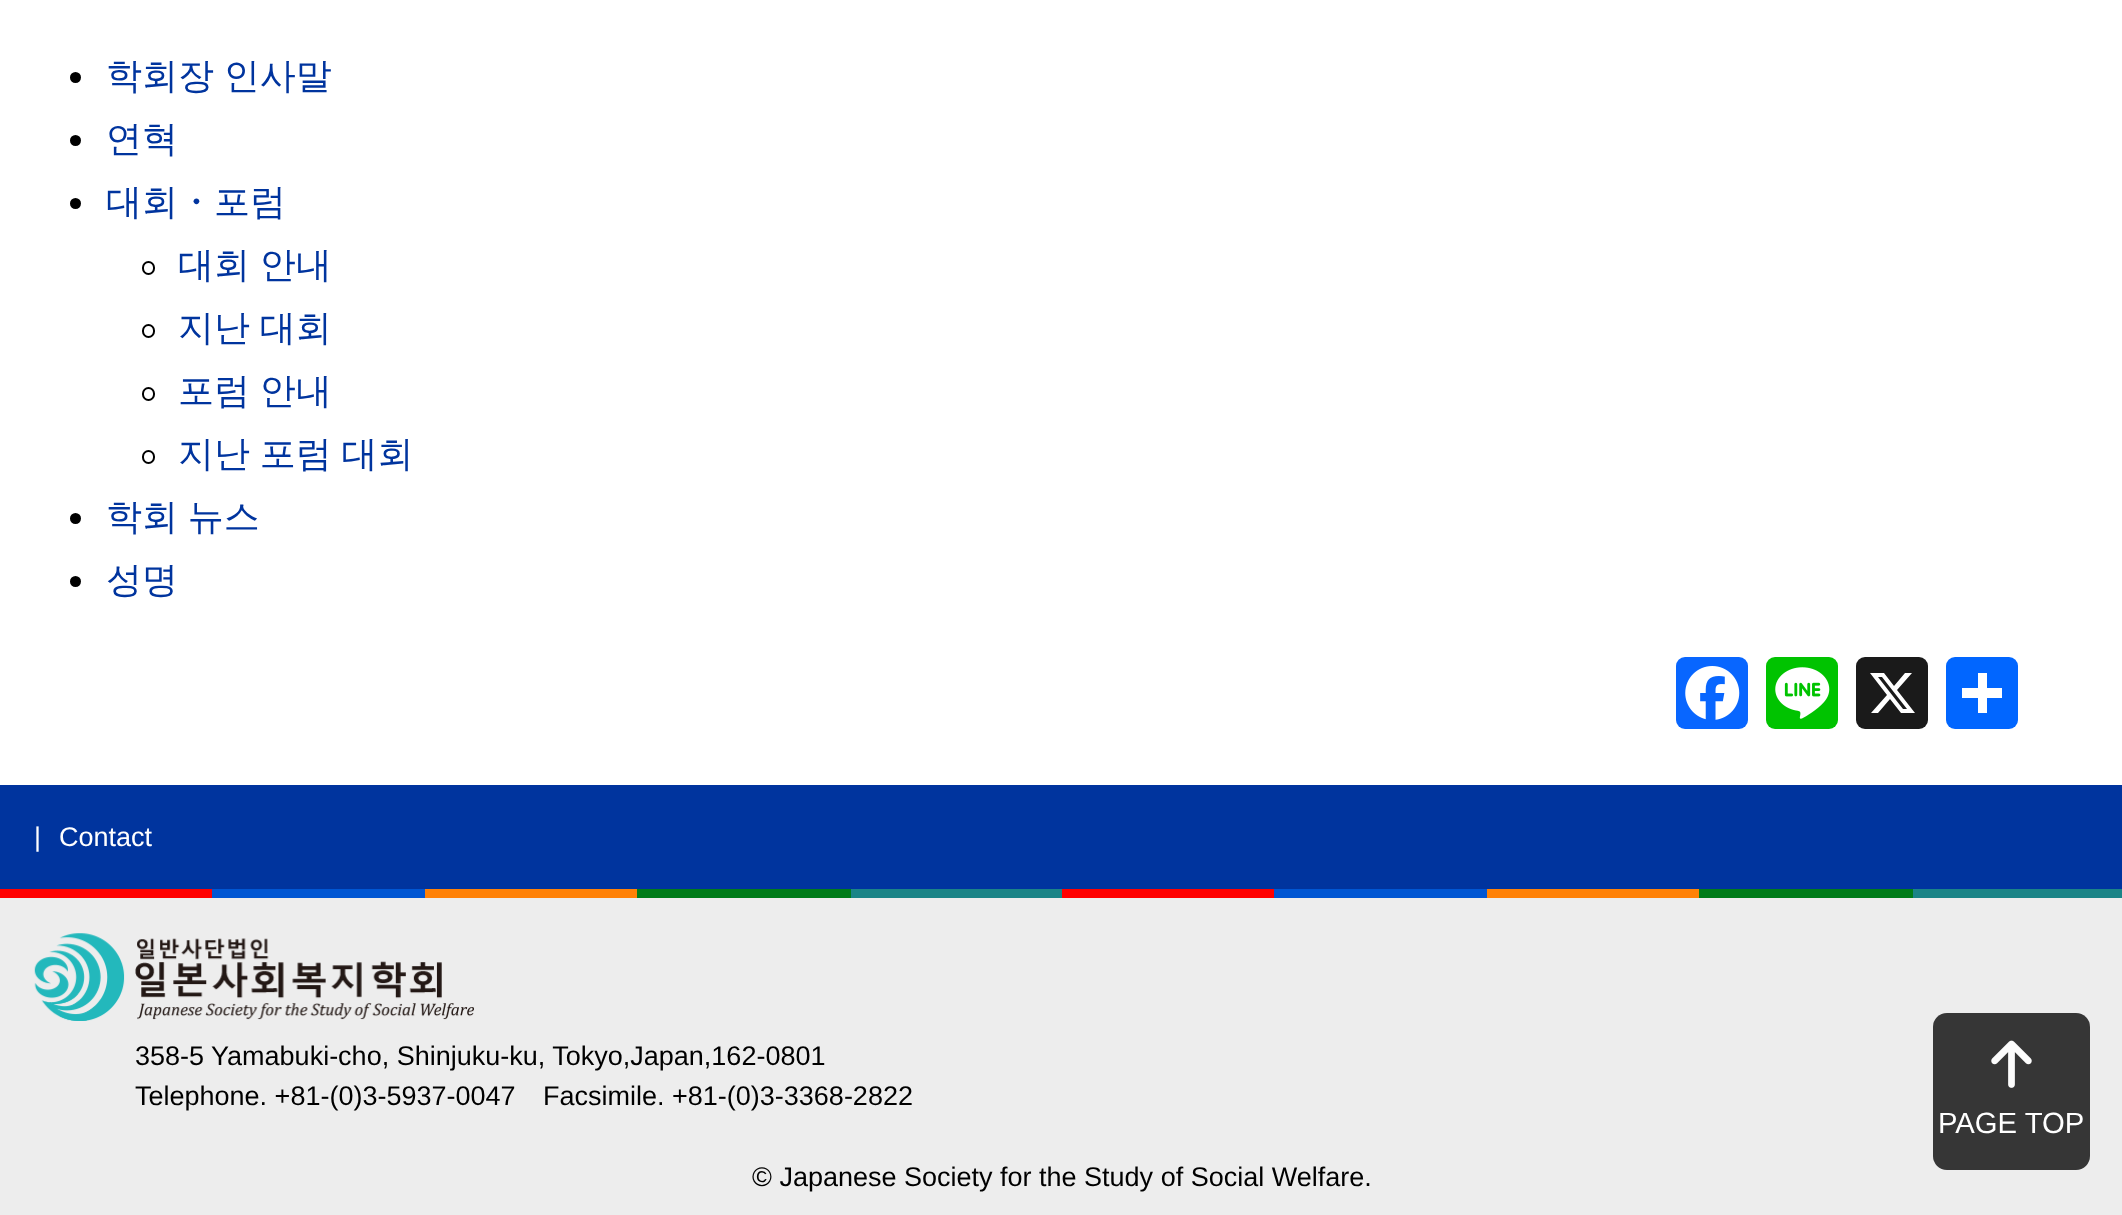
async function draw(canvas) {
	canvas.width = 2122;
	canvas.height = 1215;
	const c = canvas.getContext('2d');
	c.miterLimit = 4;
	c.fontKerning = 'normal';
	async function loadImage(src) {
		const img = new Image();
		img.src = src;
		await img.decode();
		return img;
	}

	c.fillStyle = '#fff';
	c.fillRect(0, 0, 2122, 1215);
	c.fillStyle = '#000';
	c.beginPath();
	c.arc(75.5, 77.5, 5.5, 0, 2 * Math.PI);
	c.fill();
	c.wordSpacing = '-1px';
	c.font = '500 36px WenQuanYi Zen Hei';
	c.fillStyle = '#00349e';
	c.fillText('학회장 인사말', 106, 88);
	c.fillStyle = '#000';
	c.beginPath();
	c.arc(75.5, 140.5, 5.5, 0, 2 * Math.PI);
	c.fill();
	c.wordSpacing = '0px';
	c.fillStyle = '#00349e';
	c.fillText('연혁', 106, 151);
	c.fillStyle = '#000';
	c.beginPath();
	c.arc(75.5, 203.5, 5.5, 0, 2 * Math.PI);
	c.fill();
	c.fillStyle = '#00349e';
	c.fillText('대회・포럼', 106, 214);
	c.beginPath();
	c.roundRect(143, 262, 11, 12, 5.5);
	c.strokeStyle = '#000';
	c.lineWidth = 2;
	c.stroke();
	c.wordSpacing = '-1px';
	c.fillText('대회 안내', 178, 277);
	c.beginPath();
	c.roundRect(143, 325, 11, 12, 5.5);
	c.stroke();
	c.fillText('지난 대회', 178, 340);
	c.beginPath();
	c.roundRect(143, 388, 11, 12, 5.5);
	c.stroke();
	c.fillText('포럼 안내', 178, 403);
	c.beginPath();
	c.roundRect(143, 451, 11, 12, 5.5);
	c.stroke();
	c.fillText('지난 포럼 대회', 178, 466);
	c.fillStyle = '#000';
	c.beginPath();
	c.arc(75.5, 518.5, 5.5, 0, 2 * Math.PI);
	c.fill();
	c.fillStyle = '#00349e';
	c.fillText('학회 뉴스', 106, 529);
	c.fillStyle = '#000';
	c.beginPath();
	c.arc(75.5, 581.5, 5.5, 0, 2 * Math.PI);
	c.fill();
	c.wordSpacing = '0px';
	c.fillStyle = '#00349e';
	c.fillText('성명', 106, 592);
	c.fillStyle = '#0866ff';
	c.beginPath();
	c.roundRect(1676, 657, 72, 72, 9);
	c.fill();
	c.drawImage(await loadImage('img1.png'), 1685, 666, 55, 54);
	c.fillStyle = '#00c300';
	c.beginPath();
	c.roundRect(1766, 657, 72, 72, 9);
	c.fill();
	c.drawImage(await loadImage('img2.png'), 1775, 667, 55, 52);
	c.fillStyle = '#1a1a1a';
	c.beginPath();
	c.roundRect(1856, 657, 72, 72, 9);
	c.fill();
	c.fillStyle = '#fff';
	c.beginPath();
	c.moveTo(1905, 673);
	c.lineTo(1912, 673);
	c.lineTo(1897, 690);
	c.lineTo(1915, 713);
	c.lineTo(1901, 713);
	c.lineTo(1890, 699);
	c.lineTo(1878, 713);
	c.lineTo(1871, 713);
	c.lineTo(1887, 695);
	c.lineTo(1870, 673);
	c.lineTo(1884, 673);
	c.lineTo(1894, 686);
	c.closePath();
	c.moveTo(1903, 709);
	c.lineTo(1907, 709);
	c.lineTo(1882, 677);
	c.lineTo(1878, 677);
	c.closePath();
	c.fill();
	c.fillStyle = '#0166ff';
	c.beginPath();
	c.roundRect(1946, 657, 72, 72, 9);
	c.fill();
	for (const [x, y, w, h, color] of [
		[1978, 673, 9, 40, '#fff'],
		[1962, 688, 40, 10, '#fff'],
		[0, 785, 2122, 104, '#00349e'],
	]) {
		c.fillStyle = color;
		c.fillRect(x, y, w, h);
	}
	c.font = '27px Liberation Sans';
	c.fillStyle = '#fff';
	c.fillText('|', 34, 846);
	c.fillText('Contact', 59, 846);
	for (const [x, y, w, h, color] of [
		[0, 889, 212, 9, '#f00'],
		[212, 889, 213, 9, '#0056d3'],
		[425, 889, 212, 9, '#ff8106'],
		[637, 889, 214, 9, '#007c19'],
		[851, 889, 211, 9, '#1a8487'],
		[1062, 889, 212, 9, '#f00'],
		[1274, 889, 213, 9, '#0056d3'],
		[1487, 889, 212, 9, '#ff8106'],
		[1699, 889, 214, 9, '#007c19'],
		[1913, 889, 209, 9, '#1a8487'],
		[0, 898, 2122, 317, '#ededed'],
	]) {
		c.fillStyle = color;
		c.fillRect(x, y, w, h);
	}
	c.drawImage(await loadImage('img3.png'), 34, 933, 440, 88);
	c.fillStyle = '#000';
	for (const [text, x, y] of [
		['358-5 Yamabuki-cho, Shinjuku-ku, Tokyo,Japan,162-0801', 135, 1065],
		['Telephone. +81-(0)3-5937-0047', 135, 1105],
		['Facsimile. +81-(0)3-3368-2822', 543, 1105],
	]) {
		c.fillText(text, x, y);
	}
	c.fillStyle = '#363636';
	c.beginPath();
	c.roundRect(1933, 1013, 157, 157, 14);
	c.fill();
	c.drawImage(await loadImage('img4.png'), 1991, 1040, 41, 48);
	c.font = '29.25px Liberation Sans';
	c.fillStyle = '#fff';
	c.fillText('PAGE TOP', 1938, 1133);
	c.font = '27px Liberation Sans';
	c.fillStyle = '#000';
	c.fillText('© Japanese Society for the Study of Social Welfare.', 752, 1186);
}

draw(document.querySelector('canvas'));
